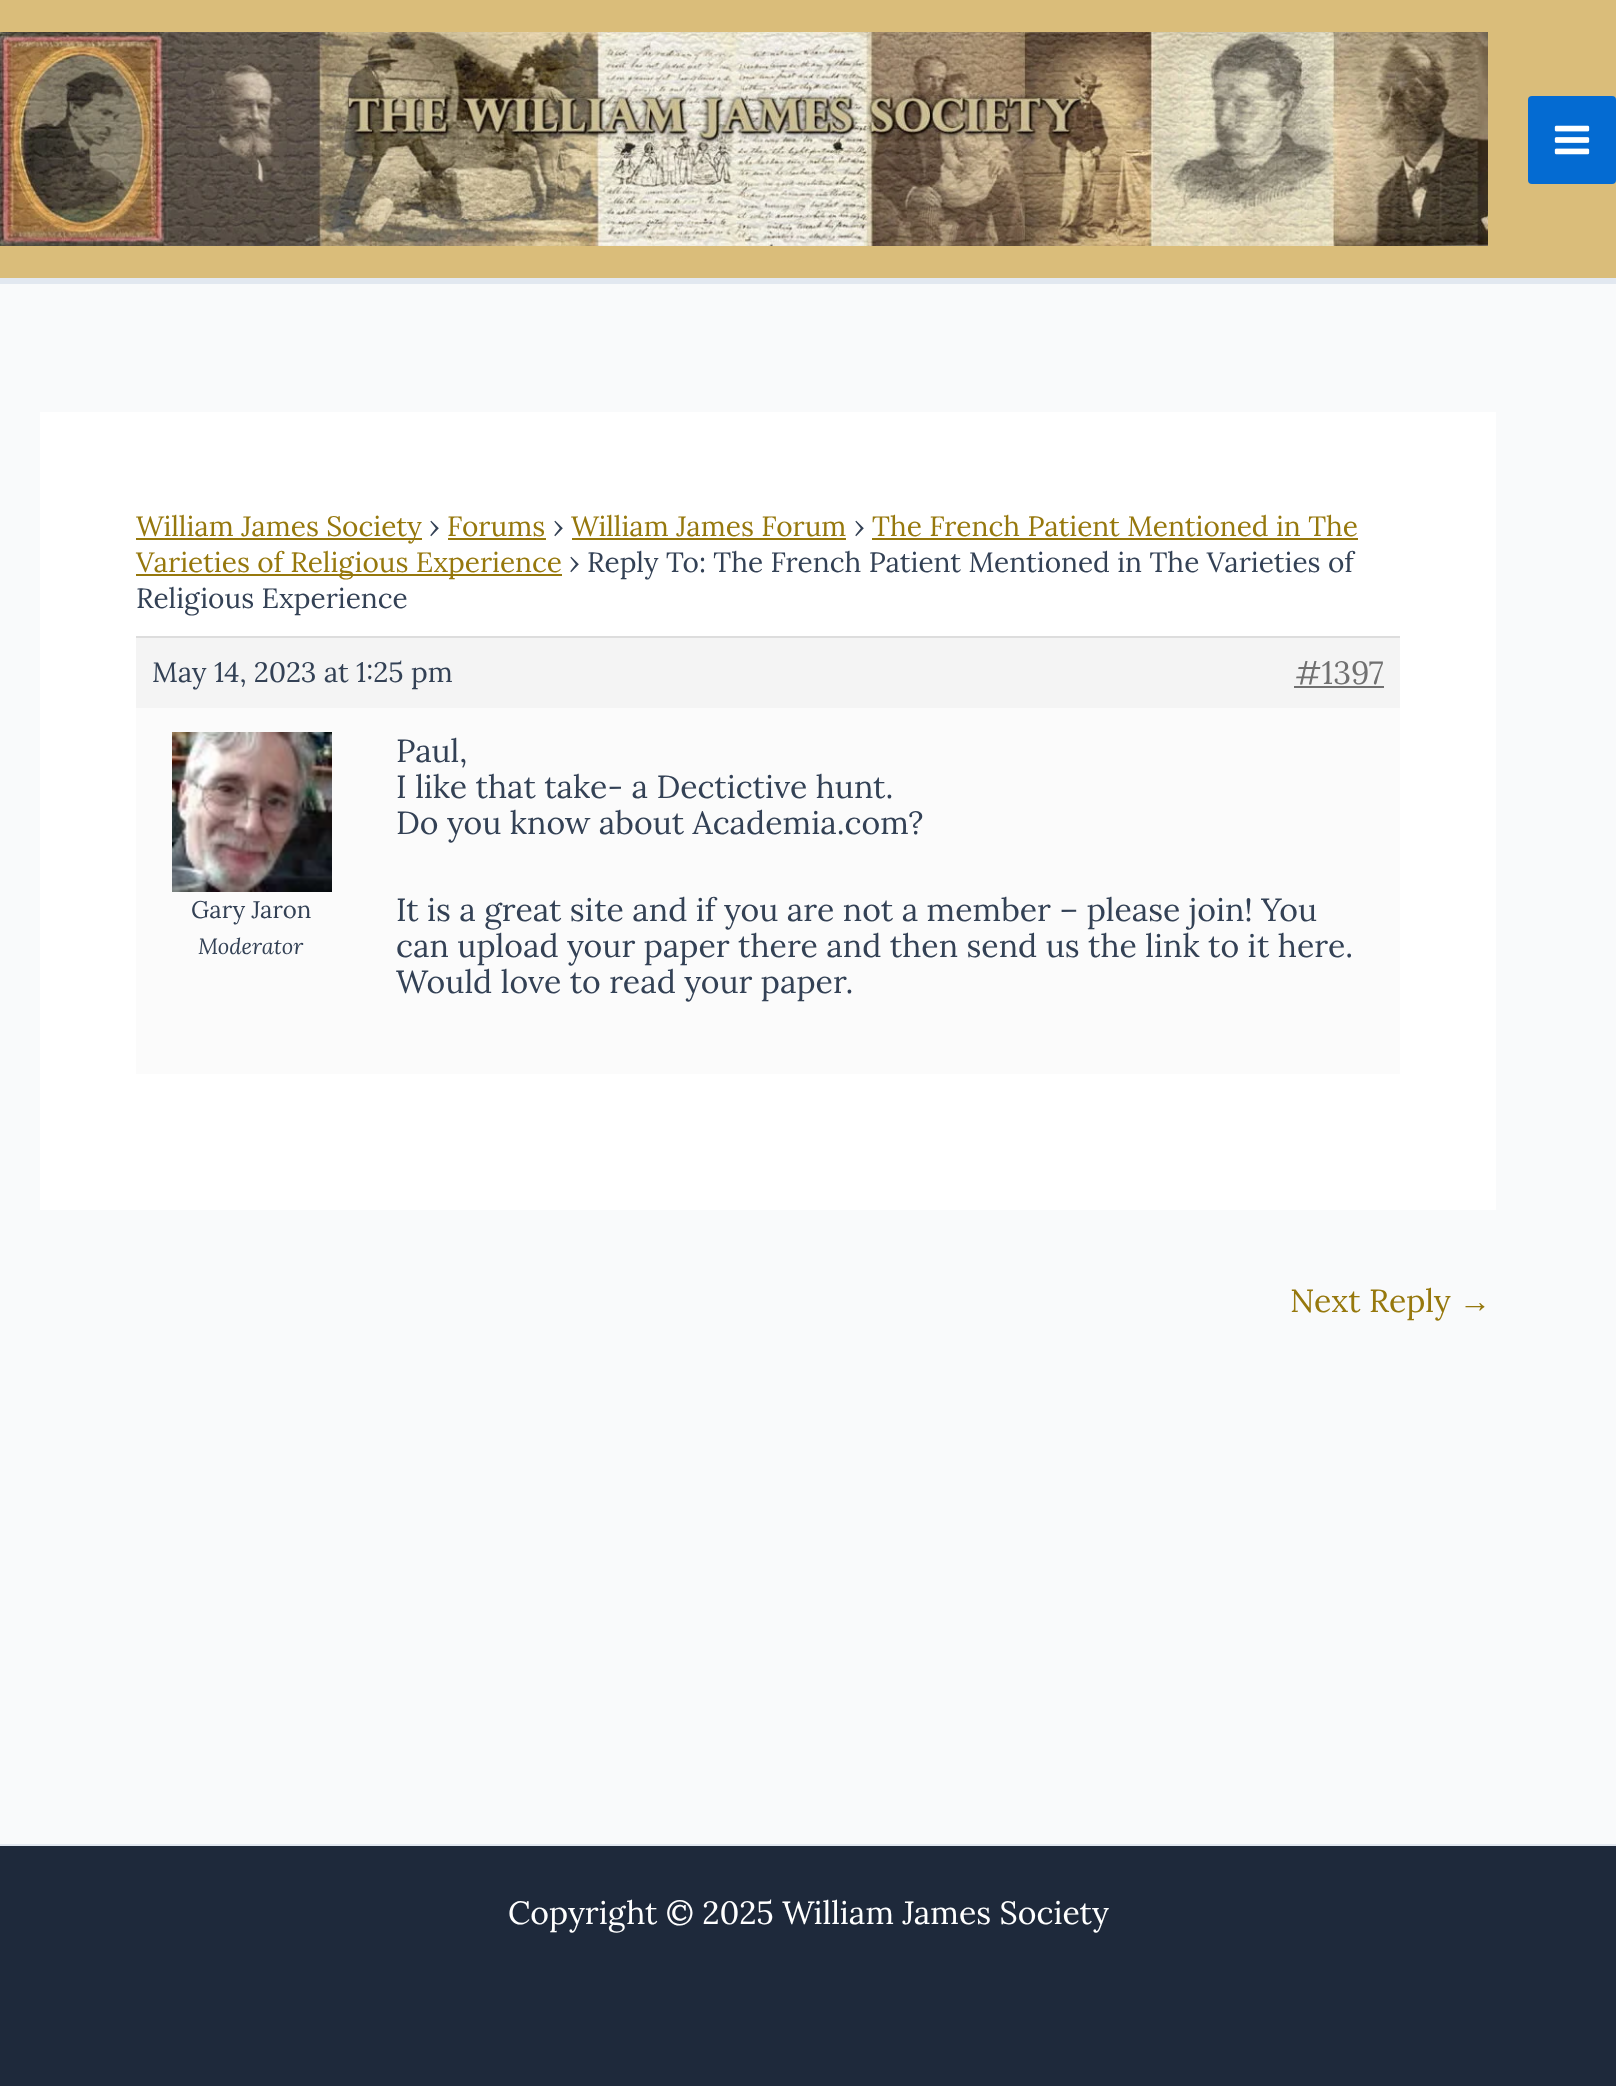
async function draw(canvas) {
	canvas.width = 1616;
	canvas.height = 2086;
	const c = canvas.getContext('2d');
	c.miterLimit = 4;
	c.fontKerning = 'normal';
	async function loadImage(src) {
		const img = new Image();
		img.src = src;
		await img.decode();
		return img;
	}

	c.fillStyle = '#f9fafb';
	c.fillRect(0, 0, 1616, 2086);
	c.fillStyle = '#dabd7a';
	c.fillRect(0, 0, 1616, 278);
	c.fillStyle = '#e2e8f0';
	c.fillRect(0, 278, 1616, 6);
	c.drawImage(await loadImage('img1.png'), 0, 32, 1488, 214);
	c.fillStyle = '#046bd2';
	c.beginPath();
	c.roundRect(1528, 96, 88, 88, 4);
	c.fill();
	c.drawImage(await loadImage('img2.png'), 1554, 125, 36, 30);
	c.fillStyle = '#fff';
	c.fillRect(40, 412, 1456, 798);
	c.fillStyle = '#96780d';
	c.fillRect(136, 538, 286, 2);
	c.font = '28px Lora';
	c.fillText('William James Society', 136, 536);
	c.fillStyle = '#334155';
	c.fillText('›', 429, 536);
	c.fillStyle = '#96780d';
	c.fillText('Forums', 447, 536);
	c.fillRect(448, 538, 98, 2);
	c.fillStyle = '#334155';
	c.fillText('›', 553, 536);
	c.fillStyle = '#96780d';
	c.fillText('William James Forum', 571, 536);
	c.fillRect(572, 538, 274, 2);
	c.fillStyle = '#334155';
	c.fillText('›', 854, 536);
	c.fillStyle = '#96780d';
	c.fillText('The French Patient Mentioned in The', 872, 536);
	c.fillRect(872, 538, 486, 2);
	c.fillRect(136, 574, 426, 2);
	c.fillText('Varieties of Religious Experience', 136, 572);
	c.fillStyle = '#334155';
	c.fillText('› Reply To: The French Patient Mentioned in The Varieties of', 569, 572);
	c.fillText('Religious Experience', 136, 608);
	c.fillStyle = '#f4f4f4';
	c.fillRect(136, 638, 1264, 70);
	c.fillStyle = '#ddd';
	c.fillRect(136, 636, 1264, 2);
	c.fillStyle = '#334155';
	c.fillText('May 14, 2023 at 1:25 pm', 152, 682);
	c.font = '32px Lora';
	c.fillStyle = '#707070';
	c.fillText('#1397', 1295, 684);
	c.fillRect(1294, 686, 90, 2);
	c.fillStyle = '#fbfbfb';
	c.fillRect(136, 708, 1264, 366);
	c.drawImage(await loadImage('img3.png'), 172, 732, 160, 160);
	c.font = '24px Lora';
	c.fillStyle = '#334155';
	c.fillText('Gary Jaron', 191, 918);
	c.font = 'italic 22px Lora';
	c.fillText('Moderator', 198, 954);
	c.font = '32px Lora';
	for (const [text, x, y] of [
		['Paul,', 396, 762],
		['I like that take- a Dectictive hunt.', 396, 798],
		['Do you know about Academia.com?', 396, 834],
		['It is a great site and if you are not a member – please join! You', 396, 921],
		['can upload your paper there and then send us the link to it here.', 396, 957],
		['Would love to read your paper.', 396, 993],
	]) {
		c.fillText(text, x, y);
	}
	c.fillStyle = '#96780d';
	c.fillText('Next Reply', 1290, 1312);
	c.font = '32px Liberation Serif';
	c.fillText('→', 1459, 1312);
	c.fillStyle = '#1e293b';
	c.fillRect(0, 1846, 1616, 240);
	c.fillStyle = '#e2e8f0';
	c.fillRect(0, 1844, 1616, 2);
	c.font = '32px Lora';
	c.fillStyle = '#fff';
	c.fillText('Copyright © 2025 William James Society', 508, 1924);
}

draw(document.querySelector('canvas'));
